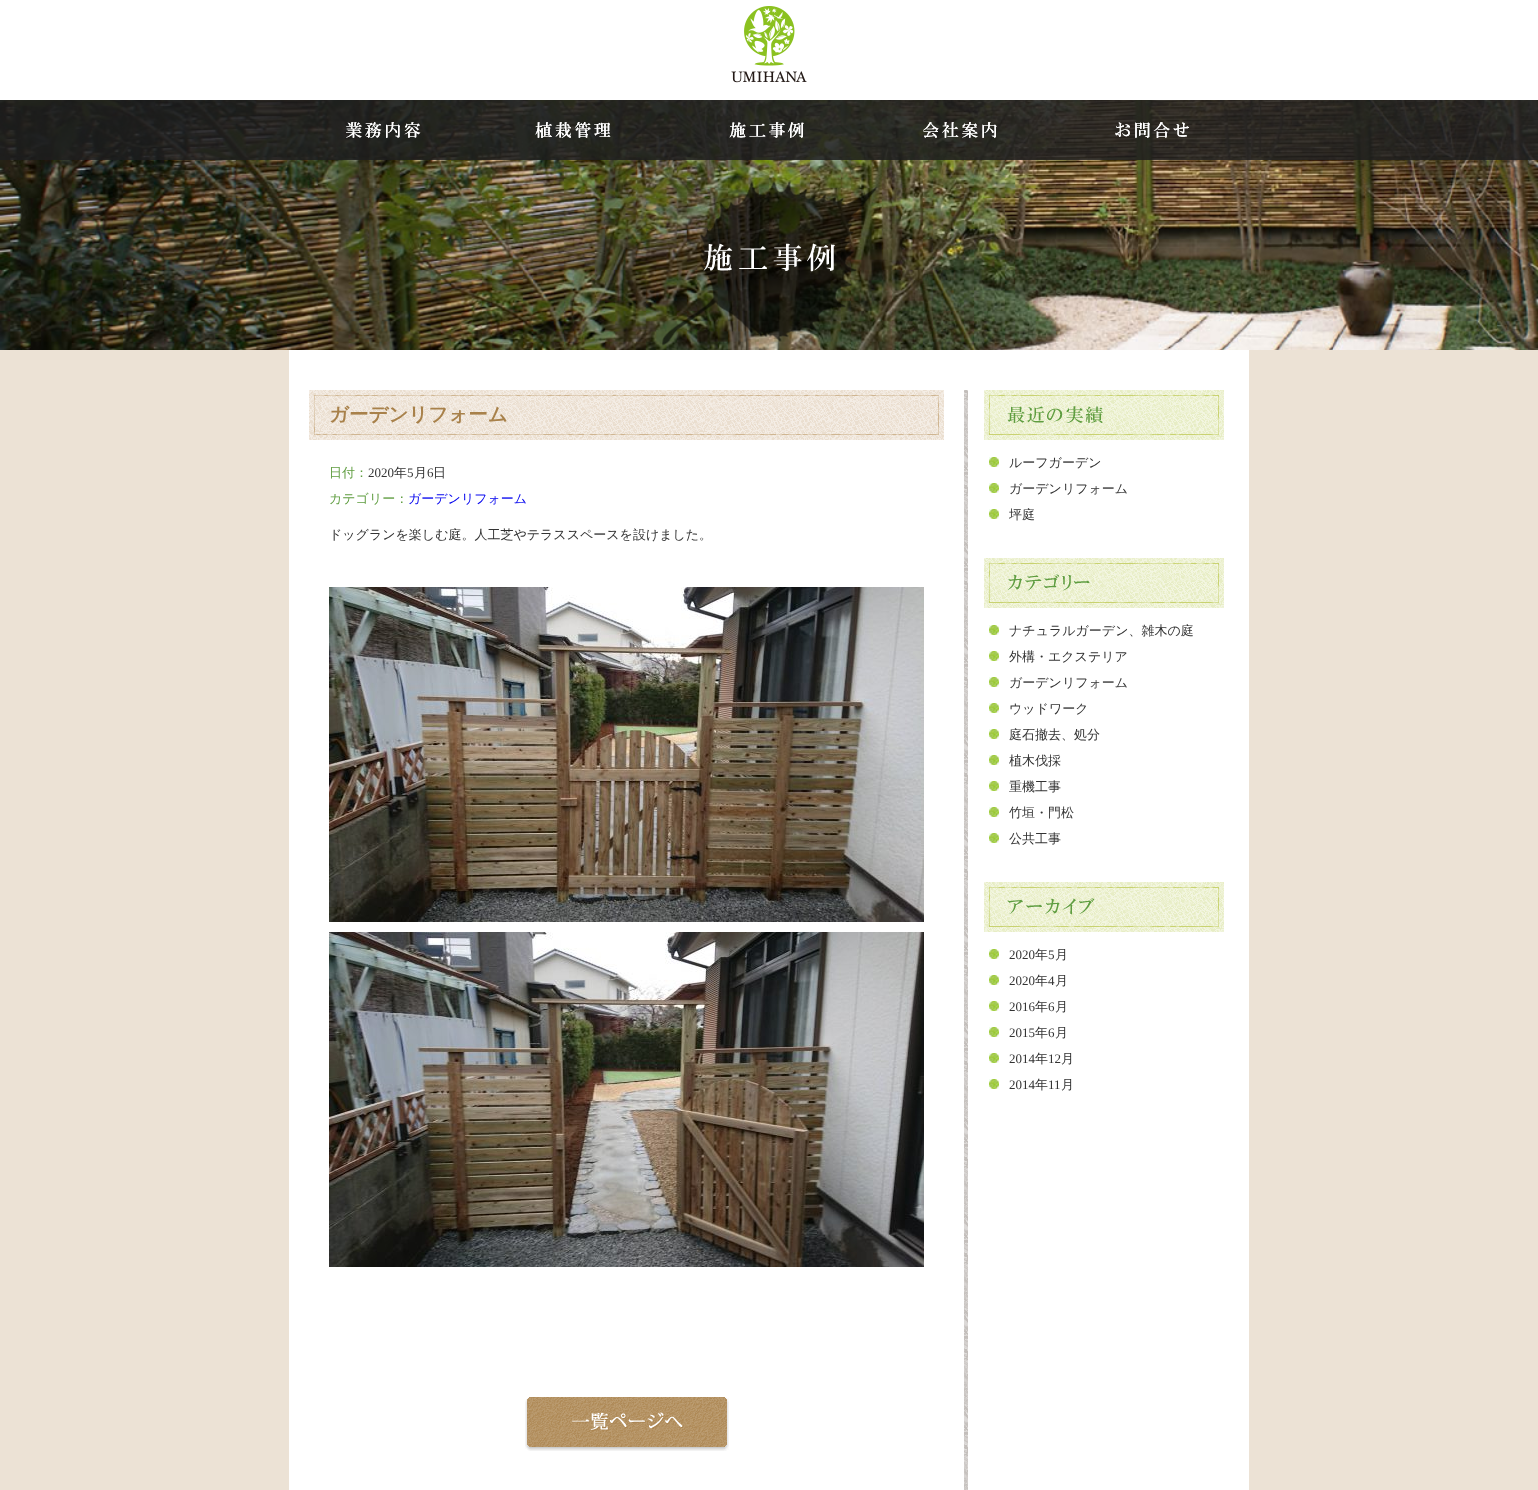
async function draw(canvas) {
	canvas.width = 1538;
	canvas.height = 1490;
	const c = canvas.getContext('2d');
	c.miterLimit = 4;
	c.fontKerning = 'normal';
	async function loadImage(src) {
		const img = new Image();
		img.src = src;
		await img.decode();
		return img;
	}

	c.fillStyle = '#ece2d5';
	c.fillRect(0, 0, 1538, 1490);
	c.fillStyle = '#fff';
	c.fillRect(0, 0, 1538, 100);
	c.drawImage(await loadImage('img1.png'), 731, 6, 76, 77);
	c.drawImage(await loadImage('img7.png'), 0, 100, 1538, 250);
	c.fillStyle = '#1d1d1fd9';
	c.fillRect(0, 100, 1538, 60);
	c.drawImage(await loadImage('img2.png'), 346, 122, 75, 16);
	c.drawImage(await loadImage('img3.png'), 535, 122, 76, 16);
	c.drawImage(await loadImage('img4.png'), 729, 122, 75, 16);
	c.drawImage(await loadImage('img5.png'), 923, 122, 74, 16);
	c.drawImage(await loadImage('img6.png'), 1115, 122, 74, 16);
	c.drawImage(await loadImage('img8.png'), 662, 180, 216, 166);
	c.fillStyle = '#fff';
	c.fillRect(289, 350, 960, 1140);
	c.drawImage(await loadImage('img9.png'), 309, 390, 635, 50);
	c.font = 'bold 19.5px WenQuanYi Zen Hei';
	c.fillStyle = '#a8814a';
	c.fillText('ガーデンリフォーム', 329, 421);
	c.font = '500 13px WenQuanYi Zen Hei';
	c.fillStyle = '#5f9d40';
	c.fillText('日付：', 329, 477);
	c.font = '13px Liberation Serif';
	c.fillStyle = '#333';
	c.fillText('2020', 368, 477);
	c.font = '500 13px WenQuanYi Zen Hei';
	c.fillText('年', 394, 477);
	c.font = '13px Liberation Serif';
	c.fillText('5', 407, 477);
	c.font = '500 13px WenQuanYi Zen Hei';
	c.fillText('月', 414, 477);
	c.font = '13px Liberation Serif';
	c.fillText('6', 427, 477);
	c.font = '500 13px WenQuanYi Zen Hei';
	c.fillText('日', 433, 477);
	c.fillStyle = '#5f9d40';
	c.fillText('カテゴリー：', 329, 503);
	c.fillStyle = '#00e';
	c.fillText('ガーデンリフォーム', 408, 503);
	c.fillStyle = '#333';
	c.fillText('ドッグランを楽しむ庭。人工芝やテラススペースを設けました。', 329, 539);
	c.drawImage(await loadImage('img10.png'), 329, 587, 595, 335);
	c.drawImage(await loadImage('img11.png'), 329, 932, 595, 335);
	c.drawImage(await loadImage('img12.png'), 525, 1397, 204, 54);
	c.drawImage(await loadImage('img13.png'), 964, 390, 4, 1100);
	c.drawImage(await loadImage('img14.png'), 984, 390, 240, 50);
	c.drawImage(await loadImage('img15.png'), 989, 457, 10, 10);
	c.fillText('ルーフガーデン', 1009, 467);
	c.drawImage(await loadImage('img15.png'), 989, 483, 10, 10);
	c.fillText('ガーデンリフォーム', 1009, 493);
	c.drawImage(await loadImage('img15.png'), 989, 509, 10, 10);
	c.fillText('坪庭', 1009, 519);
	c.drawImage(await loadImage('img16.png'), 984, 558, 240, 50);
	c.drawImage(await loadImage('img15.png'), 989, 625, 10, 10);
	c.fillText('ナチュラルガーデン、雑木の庭', 1009, 635);
	c.drawImage(await loadImage('img15.png'), 989, 651, 10, 10);
	c.fillText('外構・エクステリア', 1009, 661);
	c.drawImage(await loadImage('img15.png'), 989, 677, 10, 10);
	c.fillText('ガーデンリフォーム', 1009, 687);
	c.drawImage(await loadImage('img15.png'), 989, 703, 10, 10);
	c.fillText('ウッドワーク', 1009, 713);
	c.drawImage(await loadImage('img15.png'), 989, 729, 10, 10);
	c.fillText('庭石撤去、処分', 1009, 739);
	c.drawImage(await loadImage('img15.png'), 989, 755, 10, 10);
	c.fillText('植木伐採', 1009, 765);
	c.drawImage(await loadImage('img15.png'), 989, 781, 10, 10);
	c.fillText('重機工事', 1009, 791);
	c.drawImage(await loadImage('img15.png'), 989, 807, 10, 10);
	c.fillText('竹垣・門松', 1009, 817);
	c.drawImage(await loadImage('img15.png'), 989, 833, 10, 10);
	c.fillText('公共工事', 1009, 843);
	c.drawImage(await loadImage('img17.png'), 984, 882, 240, 50);
	c.drawImage(await loadImage('img15.png'), 989, 949, 10, 10);
	c.font = '13px Liberation Serif';
	c.fillText('2020', 1009, 959);
	c.font = '500 13px WenQuanYi Zen Hei';
	c.fillText('年', 1035, 959);
	c.font = '13px Liberation Serif';
	c.fillText('5', 1048, 959);
	c.font = '500 13px WenQuanYi Zen Hei';
	c.fillText('月', 1055, 959);
	c.drawImage(await loadImage('img15.png'), 989, 975, 10, 10);
	c.font = '13px Liberation Serif';
	c.fillText('2020', 1009, 985);
	c.font = '500 13px WenQuanYi Zen Hei';
	c.fillText('年', 1035, 985);
	c.font = '13px Liberation Serif';
	c.fillText('4', 1048, 985);
	c.font = '500 13px WenQuanYi Zen Hei';
	c.fillText('月', 1055, 985);
	c.drawImage(await loadImage('img15.png'), 989, 1001, 10, 10);
	c.font = '13px Liberation Serif';
	c.fillText('2016', 1009, 1011);
	c.font = '500 13px WenQuanYi Zen Hei';
	c.fillText('年', 1035, 1011);
	c.font = '13px Liberation Serif';
	c.fillText('6', 1048, 1011);
	c.font = '500 13px WenQuanYi Zen Hei';
	c.fillText('月', 1055, 1011);
	c.drawImage(await loadImage('img15.png'), 989, 1027, 10, 10);
	c.font = '13px Liberation Serif';
	c.fillText('2015', 1009, 1037);
	c.font = '500 13px WenQuanYi Zen Hei';
	c.fillText('年', 1035, 1037);
	c.font = '13px Liberation Serif';
	c.fillText('6', 1048, 1037);
	c.font = '500 13px WenQuanYi Zen Hei';
	c.fillText('月', 1055, 1037);
	c.drawImage(await loadImage('img15.png'), 989, 1053, 10, 10);
	c.font = '13px Liberation Serif';
	c.fillText('2014', 1009, 1063);
	c.font = '500 13px WenQuanYi Zen Hei';
	c.fillText('年', 1035, 1063);
	c.font = '13px Liberation Serif';
	c.fillText('12', 1048, 1063);
	c.font = '500 13px WenQuanYi Zen Hei';
	c.fillText('月', 1061, 1063);
	c.drawImage(await loadImage('img15.png'), 989, 1079, 10, 10);
	c.font = '13px Liberation Serif';
	c.fillText('2014', 1009, 1089);
	c.font = '500 13px WenQuanYi Zen Hei';
	c.fillText('年', 1035, 1089);
	c.font = '13px Liberation Serif';
	c.fillText('11', 1048, 1089);
	c.font = '500 13px WenQuanYi Zen Hei';
	c.fillText('月', 1061, 1089);
}

draw(document.querySelector('canvas'));
